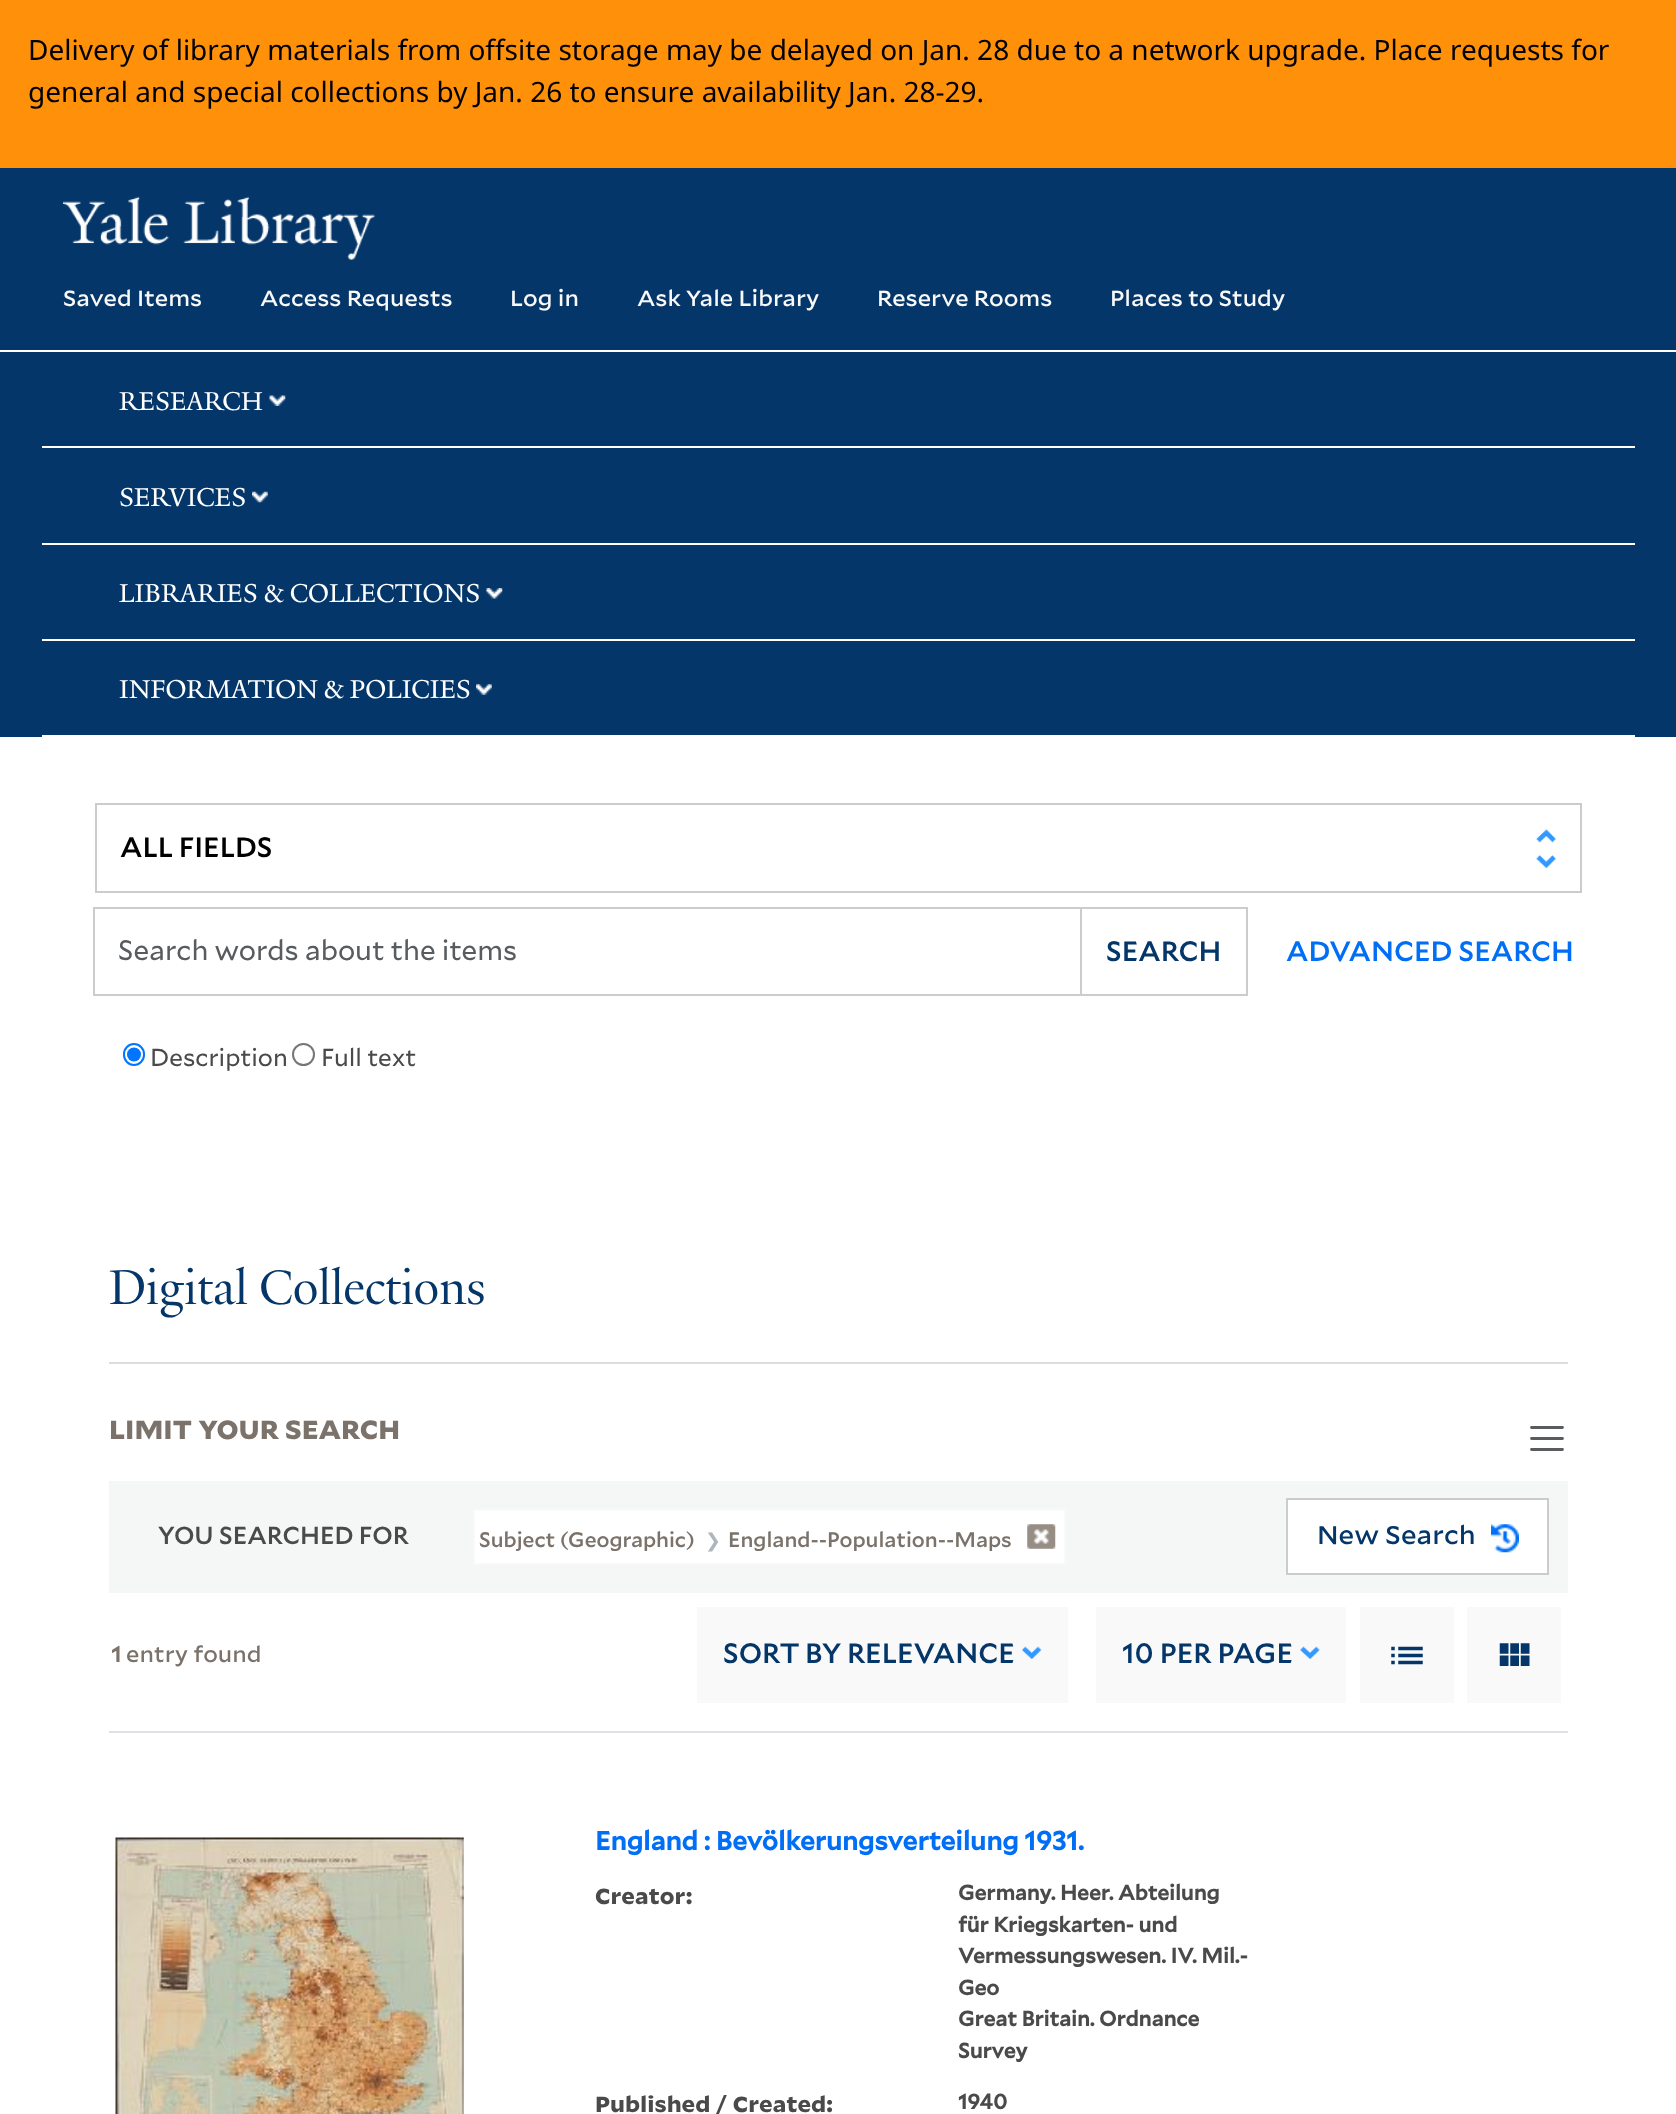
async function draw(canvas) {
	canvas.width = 1676;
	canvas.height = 2114;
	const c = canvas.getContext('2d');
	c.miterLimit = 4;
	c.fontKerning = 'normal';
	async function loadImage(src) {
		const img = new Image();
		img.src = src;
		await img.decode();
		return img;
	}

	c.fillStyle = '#fff';
	c.fillRect(0, 0, 1676, 2114);
	c.fillStyle = '#fe900a';
	c.fillRect(0, 0, 1676, 168);
	c.font = '28px Noto Sans';
	c.fillStyle = '#000';
	c.fillText('Delivery of library materials from offsite storage may be delayed on Jan. 28 due to a network upgrade. Place requests for', 28, 60);
	c.fillText('general and special collections by Jan. 26 to ensure availability Jan. 28-29.', 28, 102);
	c.fillStyle = '#043669';
	c.fillRect(0, 168, 1676, 182);
	c.drawImage(await loadImage('img1.png'), 63, 196, 312, 64);
	c.font = '500 21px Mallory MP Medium';
	c.fillStyle = '#f9f9f9';
	for (const [text, x, y] of [
		['Saved Items', 63, 306],
		['Access Requests', 260, 306],
		['Log in', 510, 306],
		['Ask Yale Library', 637, 306],
		['Reserve Rooms', 877, 306],
		['Places to Study', 1110, 306],
	]) {
		c.fillText(text, x, y);
	}
	c.fillStyle = '#043669';
	c.fillRect(0, 352, 1676, 385);
	c.fillStyle = '#fff';
	c.fillRect(42, 446, 1593, 2);
	c.font = '28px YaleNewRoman';
	c.fillText('RESEARCH', 119, 410);
	c.drawImage(await loadImage('img2.png'), 269, 395, 17, 11);
	c.fillRect(42, 543, 1593, 2);
	c.fillText('SERVICES', 119, 506);
	c.drawImage(await loadImage('img3.png'), 252, 491, 16, 12);
	c.fillRect(42, 639, 1593, 2);
	c.fillText('LIBRARIES & COLLECTIONS', 119, 602);
	c.drawImage(await loadImage('img4.png'), 486, 588, 17, 11);
	c.fillRect(42, 735, 1593, 2);
	c.fillText('INFORMATION & POLICIES', 119, 698);
	c.drawImage(await loadImage('img5.png'), 476, 684, 16, 11);
	c.drawImage(await loadImage('img6.png'), 1536, 829, 20, 39);
	c.strokeStyle = '#ccc';
	c.lineWidth = 2;
	c.strokeRect(96, 804, 1485, 88);
	c.font = '500 28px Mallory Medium';
	c.fillStyle = '#000';
	c.fillText('ALL FIELDS', 120, 857);
	c.strokeRect(94, 908, 987, 87);
	c.font = '28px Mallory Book';
	c.fillStyle = '#595c5f';
	c.fillText('Search words about the items', 118, 960);
	c.strokeRect(1081, 908, 166, 87);
	c.font = '500 28px Mallory Medium';
	c.fillStyle = '#043669';
	c.fillText('SEARCH', 1106, 961);
	c.fillStyle = '#006ef5';
	c.fillText('ADVANCED SEARCH', 1286, 961);
	c.beginPath();
	c.roundRect(124, 1044, 20, 21, 10);
	c.strokeStyle = '#0075ff';
	c.stroke();
	c.fillStyle = '#0075ff';
	c.beginPath();
	c.arc(134, 1054.5, 7, 0, 2 * Math.PI);
	c.fill();
	c.font = '24.5px Mallory Book';
	c.fillStyle = '#4a4a4a';
	c.fillText('Description', 150, 1066);
	c.beginPath();
	c.arc(303.5, 1054.5, 10.5, 0, 2 * Math.PI);
	c.strokeStyle = '#767676';
	c.stroke();
	c.fillText('Full text', 321, 1066);
	c.fillStyle = '#ddd';
	c.fillRect(109, 1362, 1459, 2);
	c.font = '52.5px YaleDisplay';
	c.fillStyle = '#043669';
	c.fillText('Digital Collections', 109, 1304);
	c.font = '900 25.25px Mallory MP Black';
	c.fillStyle = '#7b736b';
	c.fillText('LIMIT YOUR SEARCH', 109, 1439);
	c.beginPath();
	c.moveTo(1531.5, 1427.5);
	c.lineTo(1562.5, 1427.5);
	c.moveTo(1531.5, 1438.5);
	c.lineTo(1562.5, 1438.5);
	c.moveTo(1531.5, 1449.5);
	c.lineTo(1562.5, 1449.5);
	c.strokeStyle = '#595c5f';
	c.lineWidth = 2.8;
	c.lineCap = 'round';
	c.stroke();
	c.fillStyle = '#f5f6f6';
	c.fillRect(109, 1481, 1459, 112);
	c.font = '500 24.5px Mallory Medium';
	c.fillStyle = '#4a4a4a';
	c.fillText('YOU SEARCHED FOR', 158, 1544);
	c.fillStyle = '#fff';
	c.beginPath();
	c.rect(474, 1510, 591, 54);
	c.fill();
	c.strokeStyle = '#f9f9f9';
	c.lineWidth = 2;
	c.stroke();
	c.font = '500 21px Mallory Medium';
	c.fillStyle = '#7b736b';
	c.fillText('Subject (Geographic)', 479, 1547);
	c.font = '19px DejaVu Sans';
	c.fillStyle = '#adb5bd';
	c.fillText('❯', 705, 1547);
	c.font = '500 21px Mallory Medium';
	c.fillStyle = '#7b736b';
	c.fillText('England--Population--Maps', 728, 1547);
	c.drawImage(await loadImage('img7.png'), 1027, 1524, 29, 25);
	c.fillStyle = '#fff';
	c.beginPath();
	c.rect(1287, 1499, 261, 75);
	c.fill();
	c.strokeStyle = '#ccc';
	c.stroke();
	c.font = '500 24.5px Mallory MP Medium';
	c.fillStyle = '#043669';
	c.fillText('New Search', 1317, 1544);
	c.drawImage(await loadImage('img8.png'), 1491, 1524, 28, 29);
	c.fillStyle = '#dee2e6';
	c.fillRect(109, 1731, 1459, 2);
	c.font = 'bold 21px Mallory MP Medium';
	c.fillStyle = '#7b736b';
	c.fillText('1', 111, 1662);
	c.font = '500 21px Mallory MP Medium';
	c.fillText('entry found', 126, 1662);
	c.fillStyle = '#f9f9f9';
	c.fillRect(697, 1607, 371, 96);
	c.font = '500 28px Mallory Medium';
	c.fillStyle = '#043669';
	c.fillText('SORT', 723, 1663);
	c.fillText('BY RELEVANCE', 805, 1663);
	c.drawImage(await loadImage('img9.png'), 1022, 1646, 20, 13);
	c.fillStyle = '#f9f9f9';
	c.fillRect(1096, 1607, 250, 96);
	c.fillStyle = '#043669';
	c.fillText('10 PER PAGE', 1122, 1663);
	c.drawImage(await loadImage('img10.png'), 1300, 1646, 20, 13);
	c.fillStyle = '#f9f9f9';
	c.fillRect(1360, 1607, 94, 96);
	c.drawImage(await loadImage('img11.png'), 1391, 1646, 32, 19);
	c.fillRect(1467, 1607, 94, 96);
	c.drawImage(await loadImage('img12.png'), 1499, 1643, 31, 23);
	c.drawImage(await loadImage('img13.png'), 115, 1837, 349, 277);
	c.font = 'bold 26.25px Mallory Medium';
	c.fillStyle = '#006ef5';
	c.fillText('England : Bevölkerungsverteilung 1931.', 595, 1850);
	c.font = '900 21px Mallory MP Black';
	c.fillStyle = '#4a4a4a';
	c.fillText('Creator:', 595, 1904);
	c.font = 'bold 21px Mallory Medium';
	for (const [text, x, y] of [
		['Germany. Heer. Abteilung', 958, 1900],
		['für Kriegskarten- und', 958, 1932],
		['Vermessungswesen. IV. Mil.-', 958, 1963],
		['Geo', 958, 1995],
		['Great Britain. Ordnance', 958, 2026],
		['Survey', 958, 2058],
	]) {
		c.fillText(text, x, y);
	}
	c.font = '900 21px Mallory MP Black';
	c.fillText('Published / Created:', 595, 2112);
	c.font = 'bold 21px Mallory Medium';
	c.fillText('1940', 958, 2109);
}

draw(document.querySelector('canvas'));
